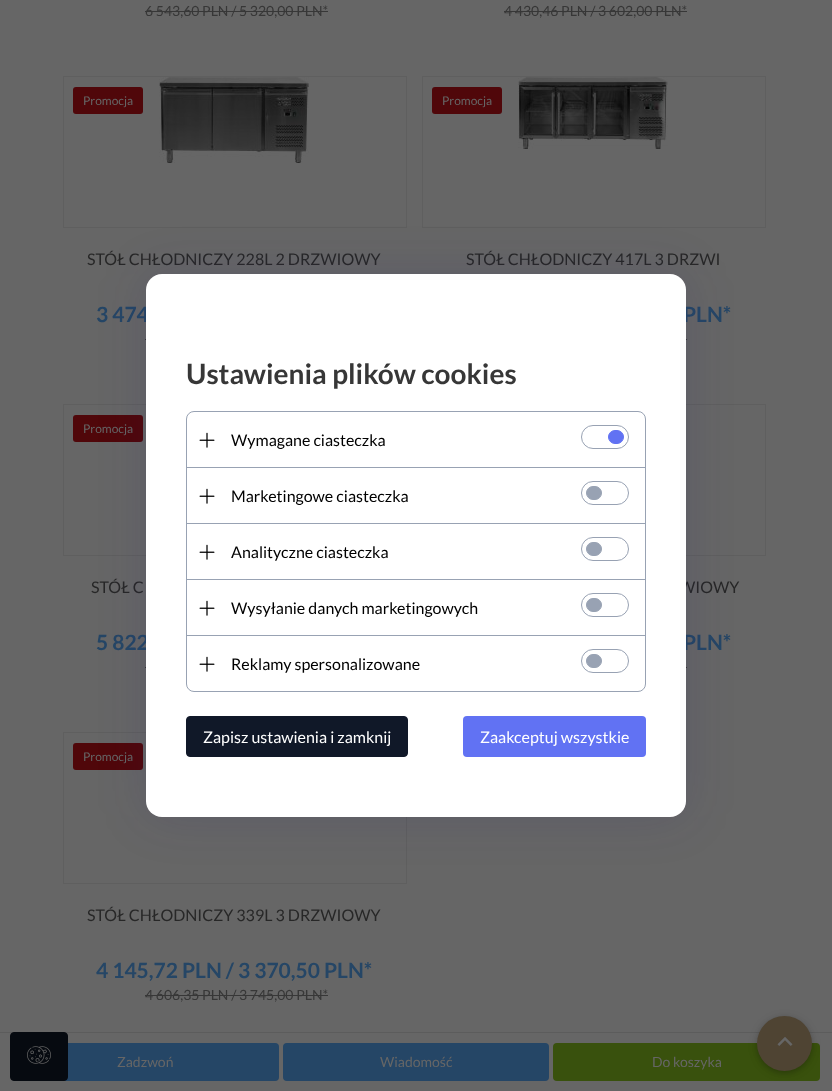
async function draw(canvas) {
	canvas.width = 832;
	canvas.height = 1091;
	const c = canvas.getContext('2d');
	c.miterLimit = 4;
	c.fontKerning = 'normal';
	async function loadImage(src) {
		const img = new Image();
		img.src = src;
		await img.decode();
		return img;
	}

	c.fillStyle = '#666';
	c.fillRect(0, 0, 832, 1091);
	c.font = '14px Lato';
	c.fillStyle = '#373737';
	c.fillText('6 543,60 PLN / 5 320,00 PLN*', 145, 16);
	c.fillRect(145, 11, 183, 1);
	c.fillText('4 430,46 PLN / 3 602,00 PLN*', 504, 16);
	c.fillRect(504, 11, 183, 1);
	c.strokeStyle = '#5f5f5f';
	c.strokeRect(63.5, 76.5, 343, 151);
	c.fillStyle = '#50070a';
	c.beginPath();
	c.roundRect(73, 87, 70, 27, 3);
	c.fill();
	c.font = '12px Lato';
	c.fillStyle = '#666';
	c.fillText('Promocja', 83, 105);
	c.drawImage(await loadImage('img1.png'), 159, 77, 150, 86);
	c.font = '16px Lato';
	c.fillStyle = '#272727';
	c.fillText('STÓŁ CHŁODNICZY 228L 2 DRZWIOWY', 87, 265);
	c.font = 'bold 21px Lato';
	c.fillStyle = '#254666';
	c.fillText('3 474', 96, 322);
	c.fillStyle = '#373737';
	c.fillRect(145, 339, 1, 1);
	c.strokeRect(422.5, 76.5, 343, 151);
	c.fillStyle = '#50070a';
	c.beginPath();
	c.roundRect(432, 87, 70, 27, 3);
	c.fill();
	c.font = '12px Lato';
	c.fillStyle = '#666';
	c.fillText('Promocja', 442, 105);
	c.drawImage(await loadImage('img2.png'), 518, 77, 150, 72);
	c.font = '16px Lato';
	c.fillStyle = '#272727';
	c.fillText('STÓŁ CHŁODNICZY 417L 3 DRZWI', 466, 265);
	c.font = 'bold 21px Lato';
	c.fillStyle = '#254666';
	c.fillText('PLN*', 683, 322);
	c.fillStyle = '#373737';
	c.fillRect(686, 339, 1, 1);
	c.strokeRect(63.5, 404.5, 343, 151);
	c.fillStyle = '#50070a';
	c.beginPath();
	c.roundRect(73, 415, 70, 27, 3);
	c.fill();
	c.font = '12px Lato';
	c.fillStyle = '#666';
	c.fillText('Promocja', 83, 433);
	c.font = '16px Lato';
	c.fillStyle = '#272727';
	c.fillText('STÓŁ C', 91, 593);
	c.font = 'bold 21px Lato';
	c.fillStyle = '#254666';
	c.fillText('5 822', 96, 650);
	c.fillStyle = '#373737';
	c.fillRect(145, 667, 1, 1);
	c.strokeRect(422.5, 404.5, 343, 151);
	c.font = '16px Lato';
	c.fillStyle = '#272727';
	c.fillText('WIOWY', 679, 593);
	c.font = 'bold 21px Lato';
	c.fillStyle = '#254666';
	c.fillText('PLN*', 683, 650);
	c.fillStyle = '#373737';
	c.fillRect(686, 667, 1, 1);
	c.strokeRect(63.5, 732.5, 343, 151);
	c.fillStyle = '#50070a';
	c.beginPath();
	c.roundRect(73, 743, 70, 27, 3);
	c.fill();
	c.font = '12px Lato';
	c.fillStyle = '#666';
	c.fillText('Promocja', 83, 761);
	c.font = '16px Lato';
	c.fillStyle = '#272727';
	c.fillText('STÓŁ CHŁODNICZY 339L 3 DRZWIOWY', 87, 921);
	c.font = 'bold 21px Lato';
	c.fillStyle = '#254666';
	c.fillText('4 145,72 PLN / 3 370,50 PLN*', 96, 978);
	c.font = '14px Lato';
	c.fillStyle = '#373737';
	c.fillText('4 606,35 PLN / 3 745,00 PLN*', 145, 1000);
	c.fillRect(145, 995, 183, 1);
	c.fillStyle = '#5c5c5c';
	c.fillRect(0, 1032, 832, 1);
	c.fillStyle = '#254666';
	c.beginPath();
	c.roundRect(12, 1043, 267, 38, 4);
	c.fill();
	c.fillStyle = '#666';
	c.fillText('Zadzwoń', 117, 1067);
	c.fillStyle = '#254666';
	c.beginPath();
	c.roundRect(283, 1043, 266, 38, 4);
	c.fill();
	c.fillStyle = '#666';
	c.fillText('Wiadomość', 380, 1067);
	c.fillStyle = '#39510d';
	c.beginPath();
	c.roundRect(553, 1043, 267, 38, 4);
	c.fill();
	c.fillStyle = '#666';
	c.fillText('Do koszyka', 652, 1067);
	c.fillStyle = '#211a6926';
	c.filter = 'blur(24px)';
	c.beginPath();
	c.roundRect(146, 274, 540, 543, 16);
	c.fill();
	c.filter = 'none';
	c.fillStyle = '#fff';
	c.beginPath();
	c.roundRect(146, 274, 540, 543, 16);
	c.fill();
	c.font = 'bold 28px Lato';
	c.fillStyle = '#373737';
	c.fillText('Ustawienia plików cookies', 186, 384);
	c.beginPath();
	c.roundRect(186.5, 411.5, 459, 280, 7.5);
	c.strokeStyle = '#98a2b3';
	c.stroke();
	c.drawImage(await loadImage('img3.png'), 199, 432, 16, 16);
	c.font = '16px Lato';
	c.fillStyle = '#000';
	c.fillText('Wymagane ciasteczka', 231, 446);
	c.beginPath();
	c.roundRect(581.5, 425.5, 47, 23, 11.5);
	c.stroke();
	c.fillStyle = '#6172f3';
	c.beginPath();
	c.roundRect(608.5, 430.5, 15, 13, 6.5);
	c.fill();
	c.strokeStyle = '#6172f3';
	c.stroke();
	c.fillStyle = '#98a2b3';
	c.fillRect(187, 467, 458, 1);
	c.drawImage(await loadImage('img3.png'), 199, 488, 16, 16);
	c.fillStyle = '#000';
	c.fillText('Marketingowe ciasteczka', 231, 502);
	c.beginPath();
	c.roundRect(581.5, 481.5, 47, 23, 11.5);
	c.strokeStyle = '#98a2b3';
	c.stroke();
	c.fillStyle = '#98a2b3';
	c.beginPath();
	c.roundRect(586.5, 486.5, 15, 13, 6.5);
	c.fill();
	c.stroke();
	c.fillRect(187, 523, 458, 1);
	c.drawImage(await loadImage('img3.png'), 199, 544, 16, 16);
	c.fillStyle = '#000';
	c.fillText('Analityczne ciasteczka', 231, 558);
	c.beginPath();
	c.roundRect(581.5, 537.5, 47, 23, 11.5);
	c.stroke();
	c.fillStyle = '#98a2b3';
	c.beginPath();
	c.roundRect(586.5, 542.5, 15, 13, 6.5);
	c.fill();
	c.stroke();
	c.fillRect(187, 579, 458, 1);
	c.drawImage(await loadImage('img3.png'), 199, 600, 16, 16);
	c.fillStyle = '#000';
	c.fillText('Wysyłanie danych marketingowych', 231, 614);
	c.beginPath();
	c.roundRect(581.5, 593.5, 47, 23, 11.5);
	c.stroke();
	c.fillStyle = '#98a2b3';
	c.beginPath();
	c.roundRect(586.5, 598.5, 15, 13, 6.5);
	c.fill();
	c.stroke();
	c.fillRect(187, 635, 458, 1);
	c.drawImage(await loadImage('img3.png'), 199, 656, 16, 16);
	c.fillStyle = '#000';
	c.fillText('Reklamy spersonalizowane', 231, 670);
	c.beginPath();
	c.roundRect(581.5, 649.5, 47, 23, 11.5);
	c.stroke();
	c.fillStyle = '#98a2b3';
	c.beginPath();
	c.roundRect(586.5, 654.5, 15, 13, 6.5);
	c.fill();
	c.stroke();
	c.fillStyle = '#101828';
	c.beginPath();
	c.roundRect(186.5, 716.5, 221, 40, 3.5);
	c.fill();
	c.strokeStyle = '#101828';
	c.stroke();
	c.fillStyle = '#fff';
	c.fillText('Zapisz ustawienia i zamknij', 203, 743);
	c.fillStyle = '#6172f3';
	c.beginPath();
	c.roundRect(463, 716, 183, 41, 4);
	c.fill();
	c.fillStyle = '#fff';
	c.fillText('Zaakceptuj wszystkie', 480, 743);
	c.fillStyle = '#060a10';
	c.beginPath();
	c.roundRect(10.5, 1032.5, 57, 48, 3.5);
	c.fill();
	c.strokeStyle = '#060a10';
	c.stroke();
	c.drawImage(await loadImage('img4.png'), 27, 1046, 24, 18);
	c.fillStyle = '#0000001f';
	c.filter = 'blur(5px)';
	c.beginPath();
	c.roundRect(757, 1018, 55, 55, 27.5);
	c.fill();
	c.filter = 'none';
	c.fillStyle = '#00000029';
	c.filter = 'blur(2.5px)';
	c.beginPath();
	c.roundRect(757, 1018, 55, 55, 27.5);
	c.fill();
	c.filter = 'none';
	c.fillStyle = '#4f4433';
	c.beginPath();
	c.arc(784.5, 1043.5, 27.5, 0, 2 * Math.PI);
	c.fill();
	c.drawImage(await loadImage('img5.png'), 777, 1037, 16, 9);
}

draw(document.querySelector('canvas'));
